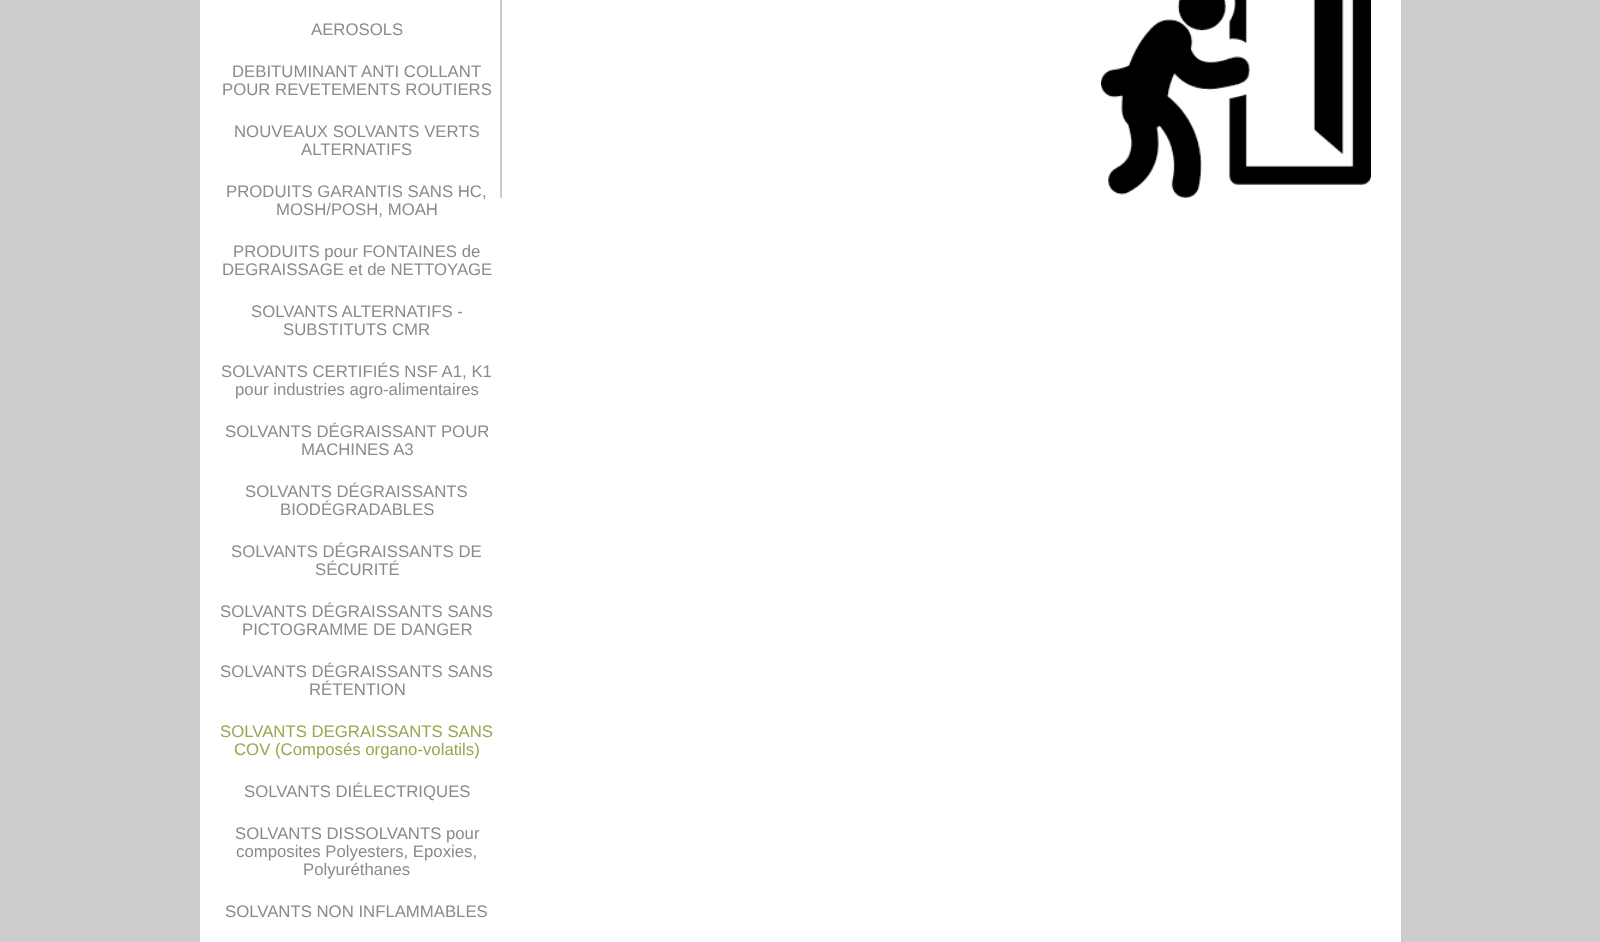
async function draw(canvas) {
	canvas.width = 1600;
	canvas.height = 942;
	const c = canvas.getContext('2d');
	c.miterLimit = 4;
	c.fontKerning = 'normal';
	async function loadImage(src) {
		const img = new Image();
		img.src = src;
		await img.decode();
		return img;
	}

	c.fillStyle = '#ccc';
	c.fillRect(0, 0, 1600, 942);
	c.fillStyle = '#fff';
	c.fillRect(200, 0, 1201, 942);
	c.font = '16.75px Liberation Sans';
	c.fillStyle = '#8b8b8b';
	for (const [text, x, y] of [
		['AEROSOLS', 311, 35],
		['DEBITUMINANT ANTI COLLANT', 232, 77],
		['POUR REVETEMENTS ROUTIERS', 222, 95],
		['NOUVEAUX SOLVANTS VERTS', 234, 137],
		['ALTERNATIFS', 301, 155],
		['PRODUITS GARANTIS SANS HC,', 226, 197],
		['MOSH/POSH, MOAH', 276, 215],
		['PRODUITS pour FONTAINES de', 233, 257],
		['DEGRAISSAGE et de NETTOYAGE', 222, 275],
		['SOLVANTS ALTERNATIFS -', 251, 317],
		['SUBSTITUTS CMR', 283, 335],
		['SOLVANTS CERTIFIÉS NSF A1, K1', 221, 377],
		['pour industries agro-alimentaires', 235, 395],
		['SOLVANTS DÉGRAISSANT POUR', 225, 437],
		['MACHINES A3', 301, 455],
		['SOLVANTS DÉGRAISSANTS', 245, 497],
		['BIODÉGRADABLES', 280, 515],
		['SOLVANTS DÉGRAISSANTS DE', 231, 557],
		['SÉCURITÉ', 315, 575],
		['SOLVANTS DÉGRAISSANTS SANS', 220, 617],
		['PICTOGRAMME DE DANGER', 242, 635],
		['SOLVANTS DÉGRAISSANTS SANS', 220, 677],
		['RÉTENTION', 309, 695],
	]) {
		c.fillText(text, x, y);
	}
	c.fillStyle = '#93aa50';
	c.fillText('SOLVANTS DEGRAISSANTS SANS', 220, 737);
	c.fillText('COV (Composés organo-volatils)', 234, 755);
	c.fillStyle = '#8b8b8b';
	for (const [text, x, y] of [
		['SOLVANTS DIÉLECTRIQUES', 244, 797],
		['SOLVANTS DISSOLVANTS pour', 235, 839],
		['composites Polyesters, Epoxies,', 236, 857],
		['Polyuréthanes', 303, 875],
		['SOLVANTS NON INFLAMMABLES', 225, 917],
	]) {
		c.fillText(text, x, y);
	}
	c.fillStyle = '#ccc';
	c.fillRect(500, 0, 2, 198);
	c.drawImage(await loadImage('img1.png'), 1101, 0, 270, 198);
}

draw(document.querySelector('canvas'));
